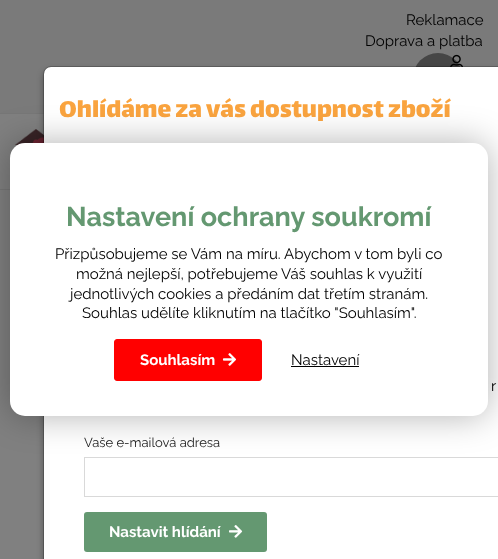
async function draw(canvas) {
	canvas.width = 498;
	canvas.height = 559;
	const c = canvas.getContext('2d');
	c.miterLimit = 4;
	c.fontKerning = 'normal';
	async function loadImage(src) {
		const img = new Image();
		img.src = src;
		await img.decode();
		return img;
	}

	c.fillStyle = '#808080';
	c.fillRect(0, 0, 498, 559);
	c.fillStyle = '#7a7a7a';
	c.fillRect(0, 0, 498, 113);
	c.font = '15px Raleway';
	c.fillStyle = '#000';
	c.fillText('Reklamace', 406, 25);
	c.fillText('Doprava a platba', 365, 46);
	c.fillStyle = '#464646';
	c.beginPath();
	c.arc(438, 78, 25, 0, 2 * Math.PI);
	c.fill();
	c.drawImage(await loadImage('img1.png'), 450, 54, 13, 13);
	c.fillStyle = '#777';
	c.fillRect(0, 113, 44, 1);
	c.fillRect(0, 189, 10, 1);
	c.drawImage(await loadImage('img2.png'), 15, 129, 29, 17);
	c.fillStyle = '#0000004d';
	c.filter = 'blur(3px)';
	c.beginPath();
	c.roundRect(43, 70, 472, 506, 8);
	c.fill();
	c.filter = 'none';
	c.fillStyle = '#fff';
	c.beginPath();
	c.roundRect(44, 67, 454, 492, [7, 0, 0, 0]);
	c.fill();
	c.beginPath();
	c.roundRect(43.5, 66.5, 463, 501, 7.5);
	c.strokeStyle = '#00000033';
	c.stroke();
	c.font = '27.75px Lalezar';
	c.fillStyle = '#faa43f';
	c.fillText('Ohlídáme za vás dostupnost zboží', 59, 117);
	c.font = '15px Raleway';
	c.fillStyle = '#000';
	c.fillText('r', 491, 391);
	c.font = '13px Raleway';
	c.fillStyle = '#1c1c1c';
	c.fillText('Vaše e-mailová adresa', 84, 447);
	c.strokeStyle = '#d9d9d9';
	c.strokeRect(84.5, 457.5, 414, 39);
	c.fillStyle = '#649871';
	c.beginPath();
	c.roundRect(84, 512, 183, 40, 3);
	c.fill();
	c.font = 'bold 15px Raleway';
	c.fillStyle = '#fff';
	c.fillText('Nastavit hlídání', 109, 537);
	c.drawImage(await loadImage('img3.png'), 229, 525, 14, 13);
	c.fillStyle = '#0000004d';
	c.filter = 'blur(17.5px)';
	c.beginPath();
	c.roundRect(10, 143, 478, 273, 15);
	c.fill();
	c.filter = 'none';
	c.fillStyle = '#fff';
	c.beginPath();
	c.roundRect(10, 143, 478, 273, 15);
	c.fill();
	c.font = 'bold 27px Raleway';
	c.fillStyle = '#649871';
	c.fillText('Nastavení ochrany soukromí', 66, 226);
	c.font = '15px Raleway';
	c.fillStyle = '#000';
	for (const [text, x, y] of [
		['Přizpůsobujeme se Vám na míru. Abychom v tom byli co', 55, 259],
		['možná nejlepší, potřebujeme Váš souhlas k využití', 76, 279],
		['jednotlivých cookies a předáním dat třetím stranám.', 70, 299],
		['Souhlas udělíte kliknutím na tlačítko "Souhlasím".', 82, 318],
	]) {
		c.fillText(text, x, y);
	}
	c.fillStyle = '#f00';
	c.beginPath();
	c.roundRect(114.5, 339.5, 147, 41, 2.5);
	c.fill();
	c.strokeStyle = '#f00';
	c.stroke();
	c.font = 'bold 15px Raleway';
	c.fillStyle = '#fff';
	c.fillText('Souhlasím', 140, 365);
	c.drawImage(await loadImage('img4.png'), 222, 353, 14, 13);
	c.font = '15px Raleway';
	c.fillStyle = '#000';
	c.fillText('Nastavení', 291, 365);
	c.fillRect(291, 366, 68, 1);
}

draw(document.querySelector('canvas'));
